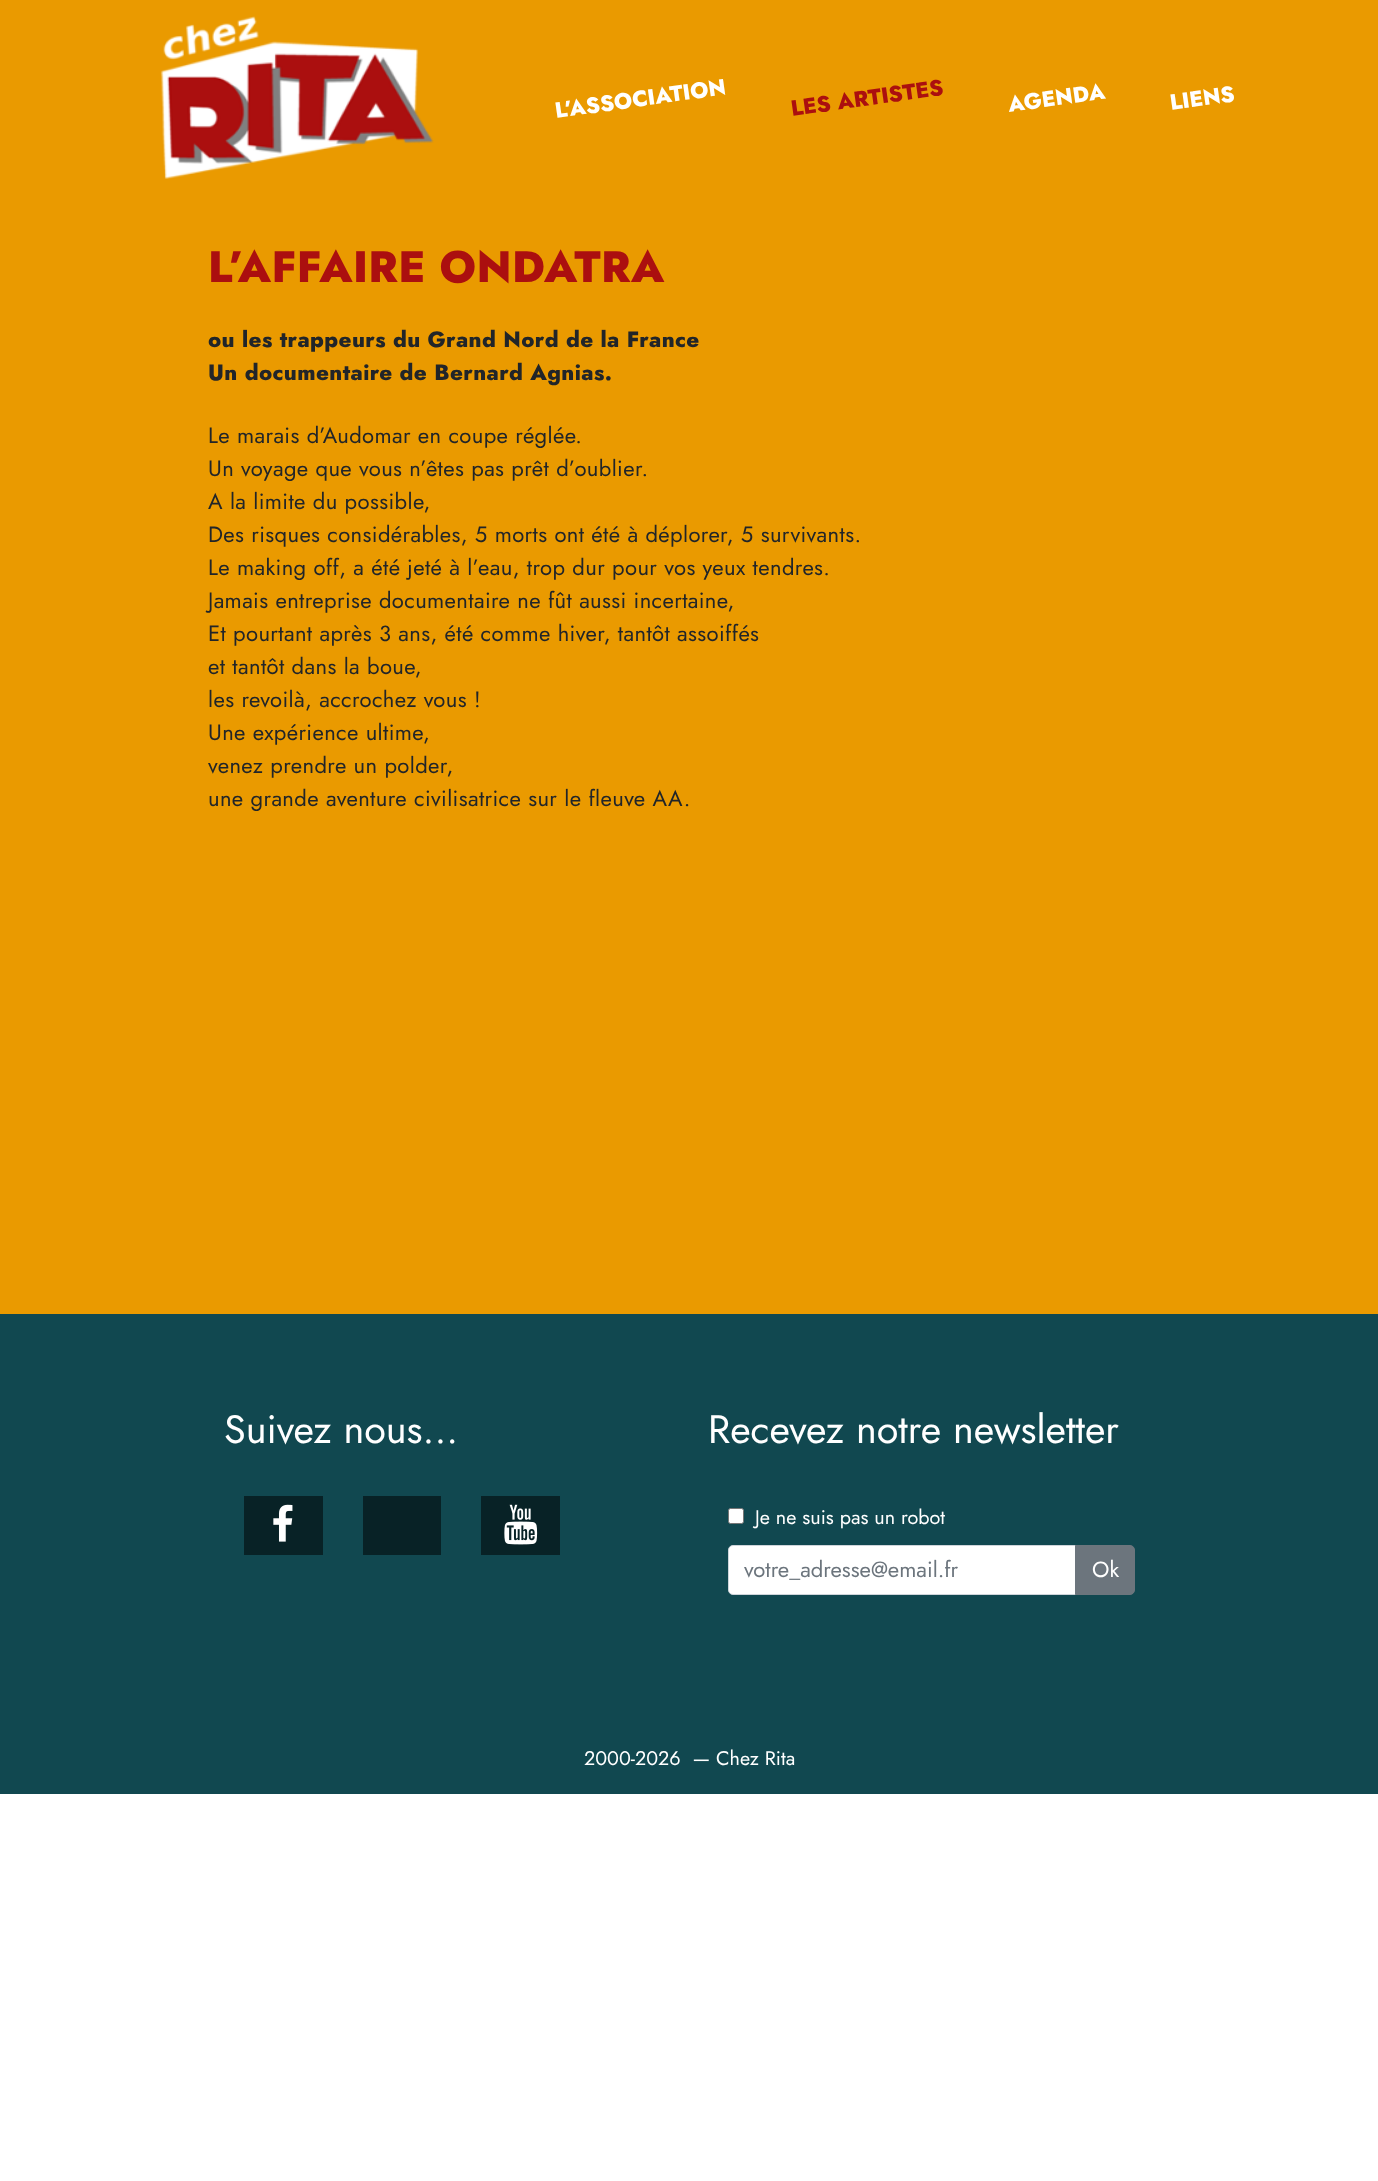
async function draw(canvas) {
	canvas.width = 1378;
	canvas.height = 2181;
	const c = canvas.getContext('2d');
	c.miterLimit = 4;
	c.fontKerning = 'normal';
	async function loadImage(src) {
		const img = new Image();
		img.src = src;
		await img.decode();
		return img;
	}

	c.fillStyle = '#fff';
	c.fillRect(0, 0, 1378, 2181);
	c.fillStyle = '#ea9a00';
	c.fillRect(0, 0, 1378, 1314);
	c.drawImage(await loadImage('img1.png'), 160, 16, 274, 163);
	c.font = '800 22px Jost';
	c.fillStyle = '#fff';
	c.save();
	c.translate(556, 118);
	c.rotate(-8 * Math.PI / 180);
	c.fillText('L’ASSOCIATION', 0, 0);
	c.restore();
	c.fillStyle = '#ab0f0f';
	c.save();
	c.translate(792, 116);
	c.rotate(-8 * Math.PI / 180);
	c.fillText('LES ARTISTES', 0, 0);
	c.restore();
	c.fillStyle = '#fff';
	c.save();
	c.translate(1009, 112);
	c.rotate(-8 * Math.PI / 180);
	c.fillText('AGENDA', 0, 0);
	c.restore();
	c.save();
	c.translate(1171, 110);
	c.rotate(-8 * Math.PI / 180);
	c.fillText('LIENS', 0, 0);
	c.restore();
	c.letterSpacing = '0.38px';
	c.font = '800 44px Jost';
	c.fillStyle = '#ab0f0f';
	c.fillText('L’AFFAIRE ONDATRA', 208, 282);
	c.font = '800 22px Jost';
	c.fillStyle = '#212529';
	c.fillText('ou les trappeurs du Grand Nord de la France', 208, 347);
	c.fillText('Un documentaire de Bernard Agnias.', 208, 380);
	c.font = '22px Jost';
	for (const [text, x, y] of [
		['Le marais d’Audomar en coupe réglée.', 208, 443],
		['Un voyage que vous n’êtes pas prêt d’oublier.', 208, 476],
		['A la limite du possible,', 208, 509],
		['Des risques considérables, 5 morts ont été à déplorer, 5 survivants.', 208, 542],
		['Le making off, a été jeté à l’eau, trop dur pour vos yeux tendres.', 208, 575],
		['Jamais entreprise documentaire ne fût aussi incertaine,', 208, 608],
		['Et pourtant après 3 ans, été comme hiver, tantôt assoiffés', 208, 641],
		['et tantôt dans la boue,', 208, 674],
		['les revoilà, accrochez vous !', 208, 707],
		['Une expérience ultime,', 208, 740],
		['venez prendre un polder,', 208, 773],
		['une grande aventure civilisatrice sur le fleuve AA.', 208, 806],
	]) {
		c.fillText(text, x, y);
	}
	c.fillStyle = '#114850';
	c.fillRect(0, 1314, 1378, 480);
	c.letterSpacing = '0px';
	c.font = '39.6px Jost';
	c.fillStyle = '#fff';
	c.fillText('Suivez nous...', 224, 1443);
	c.fillStyle = '#082226';
	c.fillRect(244, 1496, 79, 59);
	c.drawImage(await loadImage('img2.png'), 273, 1504, 20, 38);
	c.fillRect(363, 1496, 78, 59);
	c.fillRect(481, 1496, 79, 59);
	c.drawImage(await loadImage('img3.png'), 504, 1504, 34, 41);
	c.fillStyle = '#fff';
	c.fillText('Recevez notre newsletter', 708, 1443);
	c.beginPath();
	c.roundRect(728.5, 1508.5, 15, 15, 2);
	c.fill();
	c.strokeStyle = '#767676';
	c.stroke();
	c.font = '19.75px Jost';
	c.fillText('Je ne suis pas un robot', 755, 1524);
	c.beginPath();
	c.roundRect(728.5, 1545.5, 347, 49, [4.5, 0, 0, 4.5]);
	c.fill();
	c.strokeStyle = '#ced4da';
	c.stroke();
	c.font = '22px Jost';
	c.fillStyle = '#6c757d';
	c.fillText('votre_adresse@email.fr', 744, 1577);
	c.beginPath();
	c.roundRect(1075.5, 1545.5, 59, 49, [0, 4.5, 4.5, 0]);
	c.fill();
	c.strokeStyle = '#6c757d';
	c.stroke();
	c.fillStyle = '#fff';
	c.fillText('Ok', 1092, 1577);
	c.font = '19.75px Jost';
	c.fillText('2000-2026  — Chez Rita', 584, 1765);
}

draw(document.querySelector('canvas'));
